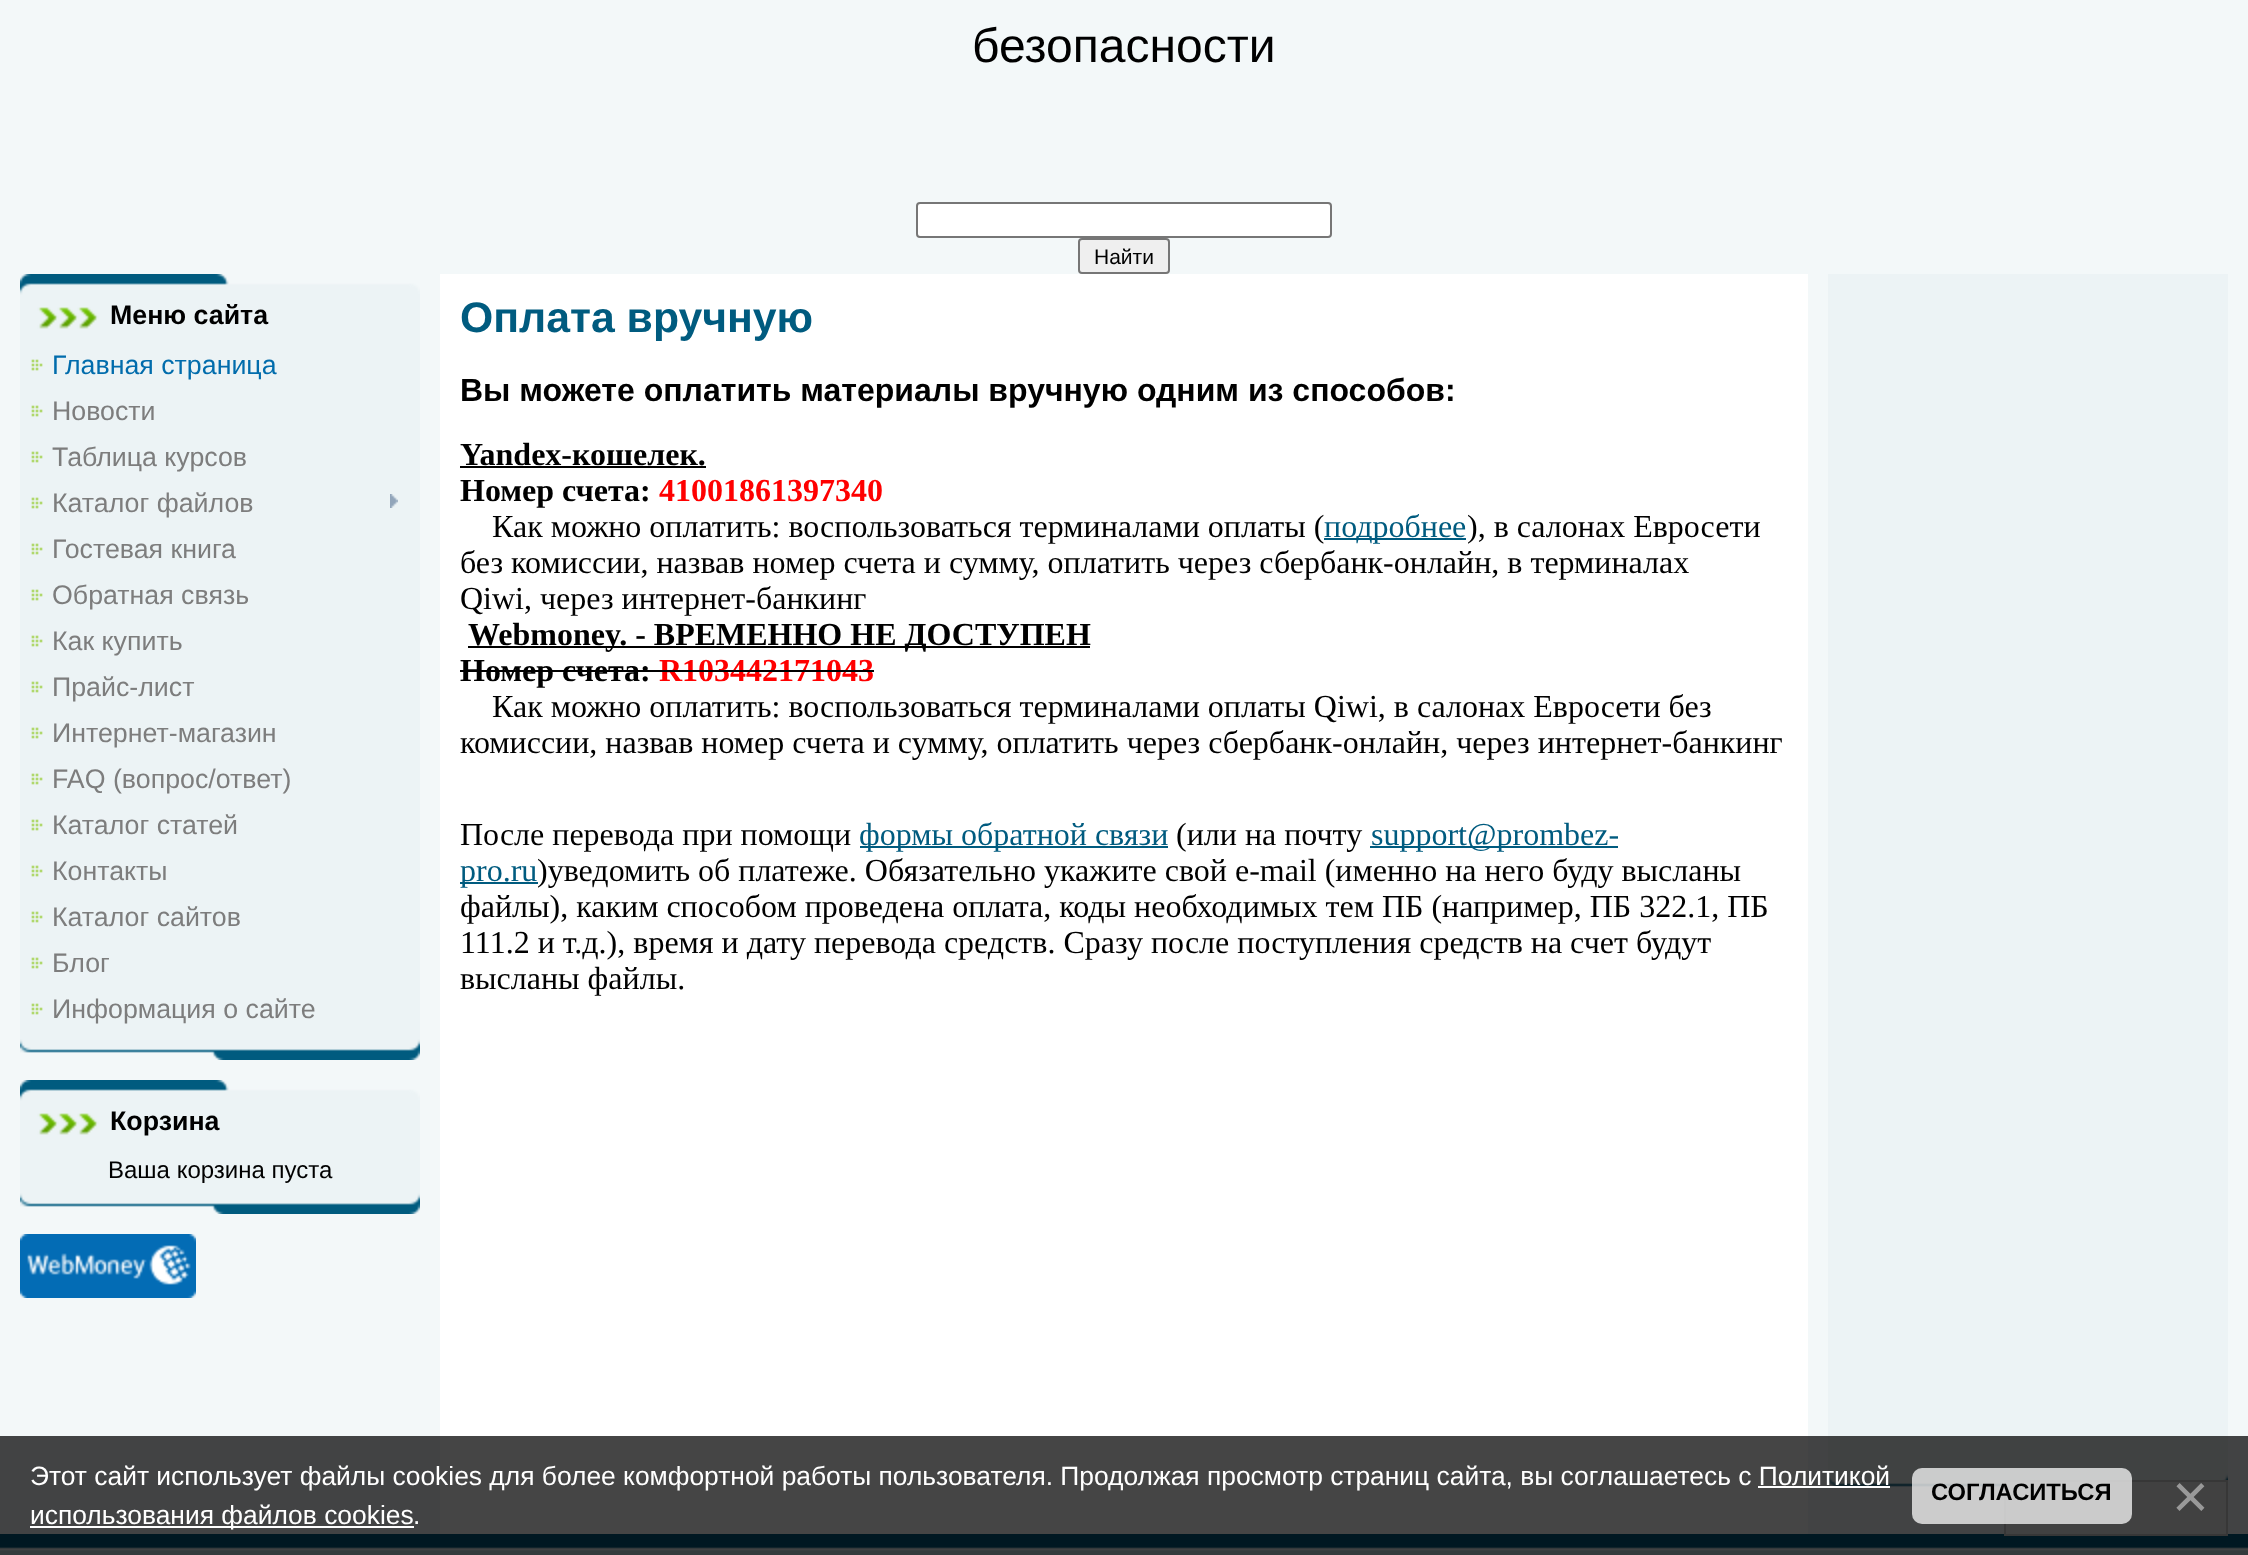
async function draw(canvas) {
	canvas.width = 2248;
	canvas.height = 1555;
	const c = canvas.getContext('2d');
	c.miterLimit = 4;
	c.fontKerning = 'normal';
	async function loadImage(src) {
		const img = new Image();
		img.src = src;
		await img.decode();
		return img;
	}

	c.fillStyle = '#f3f8f9';
	c.fillRect(0, 0, 2248, 1555);
	c.font = '48px Liberation Sans';
	c.fillStyle = '#000';
	c.fillText('безопасности', 972, 62);
	c.fillStyle = '#fff';
	c.beginPath();
	c.roundRect(917, 203, 414, 34, 3);
	c.fill();
	c.strokeStyle = '#767676';
	c.lineWidth = 2;
	c.stroke();
	c.fillStyle = '#efefef';
	c.beginPath();
	c.roundRect(1079, 239, 90, 34, 3);
	c.fill();
	c.stroke();
	c.font = '21px Liberation Sans';
	c.fillStyle = '#000';
	c.fillText('Найти', 1094, 264);
	c.drawImage(await loadImage('img1.png'), 20, 274, 400, 76);
	c.font = 'bold 26.75px Liberation Sans';
	c.fillText('Меню сайта', 110, 324);
	c.drawImage(await loadImage('img2.png'), 20, 350, 400, 710);
	c.drawImage(await loadImage('img3.png'), 31, 359, 12, 12);
	c.font = '26.75px Liberation Sans';
	c.fillStyle = '#016cac';
	c.fillText('Главная страница', 52, 374);
	c.drawImage(await loadImage('img3.png'), 31, 405, 12, 12);
	c.fillStyle = '#7d7d7d';
	c.fillText('Новости', 52, 420);
	c.drawImage(await loadImage('img3.png'), 31, 451, 12, 12);
	c.fillText('Таблица курсов', 52, 466);
	c.drawImage(await loadImage('img3.png'), 31, 497, 12, 12);
	c.fillText('Каталог файлов', 52, 512);
	c.drawImage(await loadImage('img4.png'), 390, 494, 8, 14);
	c.drawImage(await loadImage('img3.png'), 31, 543, 12, 12);
	c.fillText('Гостевая книга', 52, 558);
	c.drawImage(await loadImage('img3.png'), 31, 589, 12, 12);
	c.fillText('Обратная связь', 52, 604);
	c.drawImage(await loadImage('img3.png'), 31, 635, 12, 12);
	c.fillText('Как купить', 52, 650);
	c.drawImage(await loadImage('img3.png'), 31, 681, 12, 12);
	c.fillText('Прайс-лист', 52, 696);
	c.drawImage(await loadImage('img3.png'), 31, 727, 12, 12);
	c.fillText('Интернет-магазин', 52, 742);
	c.drawImage(await loadImage('img3.png'), 31, 773, 12, 12);
	c.fillText('FAQ (вопрос/ответ)', 52, 788);
	c.drawImage(await loadImage('img3.png'), 31, 819, 12, 12);
	c.fillText('Каталог статей', 52, 834);
	c.drawImage(await loadImage('img3.png'), 31, 865, 12, 12);
	c.fillText('Контакты', 52, 880);
	c.drawImage(await loadImage('img3.png'), 31, 911, 12, 12);
	c.fillText('Каталог сайтов', 52, 926);
	c.drawImage(await loadImage('img3.png'), 31, 957, 12, 12);
	c.fillText('Блог', 52, 972);
	c.drawImage(await loadImage('img3.png'), 31, 1003, 12, 12);
	c.fillText('Информация о сайте', 52, 1018);
	c.drawImage(await loadImage('img1.png'), 20, 1080, 400, 76);
	c.font = 'bold 26.75px Liberation Sans';
	c.fillStyle = '#000';
	c.fillText('Корзина', 110, 1130);
	c.drawImage(await loadImage('img5.png'), 20, 1156, 400, 58);
	c.font = '24px Liberation Sans';
	c.fillText('Ваша корзина пуста', 108, 1178);
	c.drawImage(await loadImage('img6.png'), 20, 1234, 176, 64);
	c.fillStyle = '#fff';
	c.fillRect(440, 274, 1368, 1260);
	c.font = 'bold 42.75px Liberation Sans';
	c.fillStyle = '#005b7f';
	c.fillText('Оплата вручную', 460, 332);
	c.font = 'bold 32px Liberation Sans';
	c.fillStyle = '#000';
	c.fillText('Вы можете оплатить материалы вручную одним из способов:', 460, 401);
	c.font = 'bold 32px Liberation Serif';
	c.fillText('Yandex-кошелек.', 460, 465);
	c.fillRect(460, 466, 246, 2);
	c.fillText('Номер счета:', 460, 501);
	c.fillStyle = '#f00';
	c.fillText('41001861397340', 659, 501);
	c.font = '32px Liberation Serif';
	c.fillStyle = '#000';
	c.fillText('Как можно оплатить: воспользоваться терминалами оплаты (', 492, 537);
	c.fillStyle = '#005b7f';
	c.fillRect(1324, 538, 142, 2);
	c.fillText('подробнее', 1324, 537);
	c.fillStyle = '#000';
	for (const [text, x, y] of [
		['), в салонах Евросети', 1467, 537],
		['без комиссии, назвав номер счета и сумму, оплатить через сбербанк-онлайн, в терминалах', 460, 573],
		['Qiwi, через интернет-банкинг', 460, 609],
	]) {
		c.fillText(text, x, y);
	}
	c.fillRect(468, 646, 622, 2);
	c.font = 'bold 32px Liberation Serif';
	c.fillText('Webmoney. - ВРЕМЕННО НЕ ДОСТУПЕН', 468, 645);
	c.fillText('Номер счета:', 460, 681);
	c.fillStyle = '#f00';
	c.fillText('R103442171043', 659, 681);
	c.fillStyle = '#000';
	c.fillRect(460, 670, 198, 2);
	c.fillRect(658, 670, 216, 2);
	c.font = '32px Liberation Serif';
	for (const [text, x, y] of [
		['Как можно оплатить: воспользоваться терминалами оплаты Qiwi, в салонах Евросети без', 492, 717],
		['комиссии, назвав номер счета и сумму, оплатить через сбербанк-онлайн, через интернет-банкинг', 460, 753],
		['После перевода при помощи', 460, 845],
	]) {
		c.fillText(text, x, y);
	}
	c.fillStyle = '#005b7f';
	c.fillRect(860, 846, 308, 2);
	c.fillText('формы обратной связи', 859, 845);
	c.fillStyle = '#000';
	c.fillText('(или на почту', 1176, 845);
	c.fillStyle = '#005b7f';
	c.fillRect(1370, 846, 248, 2);
	c.fillText('support@prombez-', 1371, 845);
	c.fillRect(460, 882, 78, 2);
	c.fillText('pro.ru', 460, 881);
	c.fillStyle = '#000';
	for (const [text, x, y] of [
		[')уведомить об платеже. Обязательно укажите свой e-mail (именно на него буду высланы', 537, 881],
		['файлы), каким способом проведена оплата, коды необходимых тем ПБ (например, ПБ 322.1, ПБ', 460, 917],
		['111.2 и т.д.), время и дату перевода средств. Сразу после поступления средств на счет будут', 460, 953],
		['высланы файлы.', 460, 989],
	]) {
		c.fillText(text, x, y);
	}
	c.drawImage(await loadImage('img7.png'), 1828, 274, 400, 1213);
	c.drawImage(await loadImage('img8.png'), 0, 1534, 2248, 17);
	c.fillStyle = '#f1f1f1';
	c.beginPath();
	c.rect(2005, 1481, 222, 54);
	c.fill();
	c.strokeStyle = '#ccc';
	c.stroke();
	c.fillStyle = '#bfd6df';
	c.fillRect(0, 1551, 2248, 4);
	c.fillStyle = '#000000ba';
	c.fillRect(0, 1436, 2248, 119);
	c.font = '26.4px Liberation Sans';
	c.fillStyle = '#fff';
	c.fillText('Этот сайт использует файлы cookies для более комфортной работы пользователя. Продолжая просмотр страниц сайта, вы соглашаетесь с Политикой', 30, 1485);
	c.fillRect(30, 1526, 384, 2);
	c.fillText('использования файлов cookies', 30, 1524);
	c.fillRect(1758, 1486, 132, 2);
	c.fillText('.', 413, 1524);
	c.fillStyle = '#ffffffba';
	c.beginPath();
	c.roundRect(1912, 1468, 220, 56, 10);
	c.fill();
	c.font = 'bold 23.75px Liberation Sans';
	c.fillStyle = '#000';
	c.fillText('СОГЛАСИТЬСЯ', 1931, 1500);
	c.font = '63px Liberation Sans';
	c.fillStyle = '#999';
	c.fillText('×', 2172, 1518);
}

draw(document.querySelector('canvas'));
